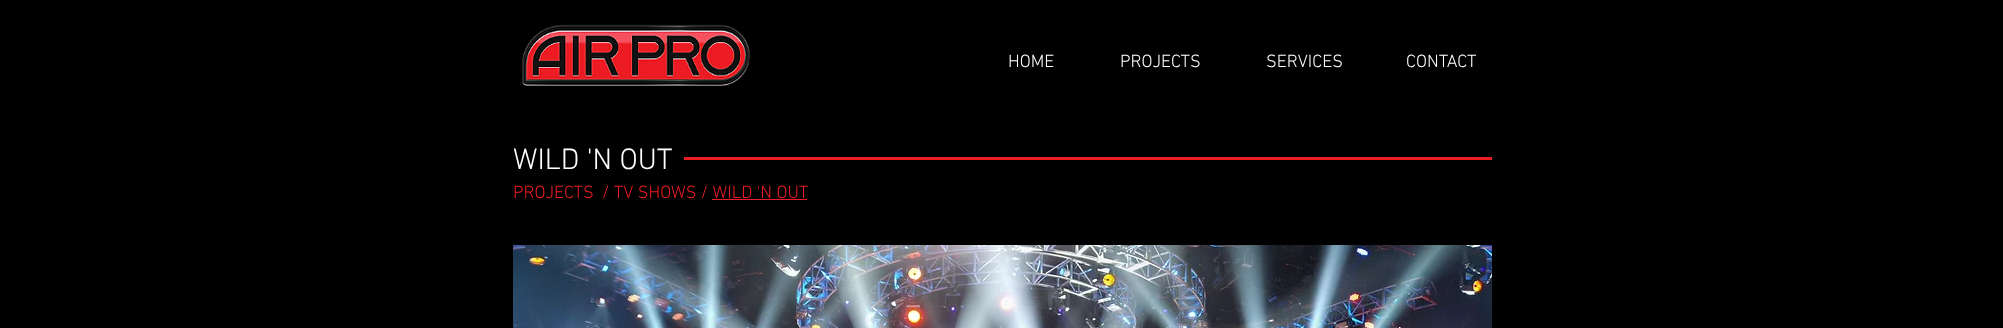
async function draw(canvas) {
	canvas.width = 2003;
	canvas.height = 328;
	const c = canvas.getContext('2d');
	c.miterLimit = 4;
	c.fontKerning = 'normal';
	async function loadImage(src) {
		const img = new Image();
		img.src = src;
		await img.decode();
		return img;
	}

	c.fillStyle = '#000';
	c.fillRect(0, 0, 2003, 328);
	c.drawImage(await loadImage('img1.png'), 522, 24, 228, 62);
	c.font = '300 18px "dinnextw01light"';
	c.fillStyle = '#fff';
	for (const [text, x, y] of [
		['HOME', 1008, 67],
		['PROJECTS', 1120, 67],
		['SERVICES', 1266, 67],
		['CONTACT', 1406, 67],
	]) {
		c.fillText(text, x, y);
	}
	c.font = '300 30px "dinnextw01light"';
	c.fillText('WILD \'N OUT', 513, 169);
	c.fillStyle = '#ed1c24';
	c.fillRect(684, 157, 808, 3);
	c.font = '300 18px "dinnextw01light"';
	c.fillText('PROJECTS', 513, 198);
	c.fillText('/ TV SHOWS / WILD \'N OUT', 602, 198);
	c.fillRect(712, 199, 95, 1);
	c.drawImage(await loadImage('img2.png'), 513, 245, 979, 83);
}

draw(document.querySelector('canvas'));
